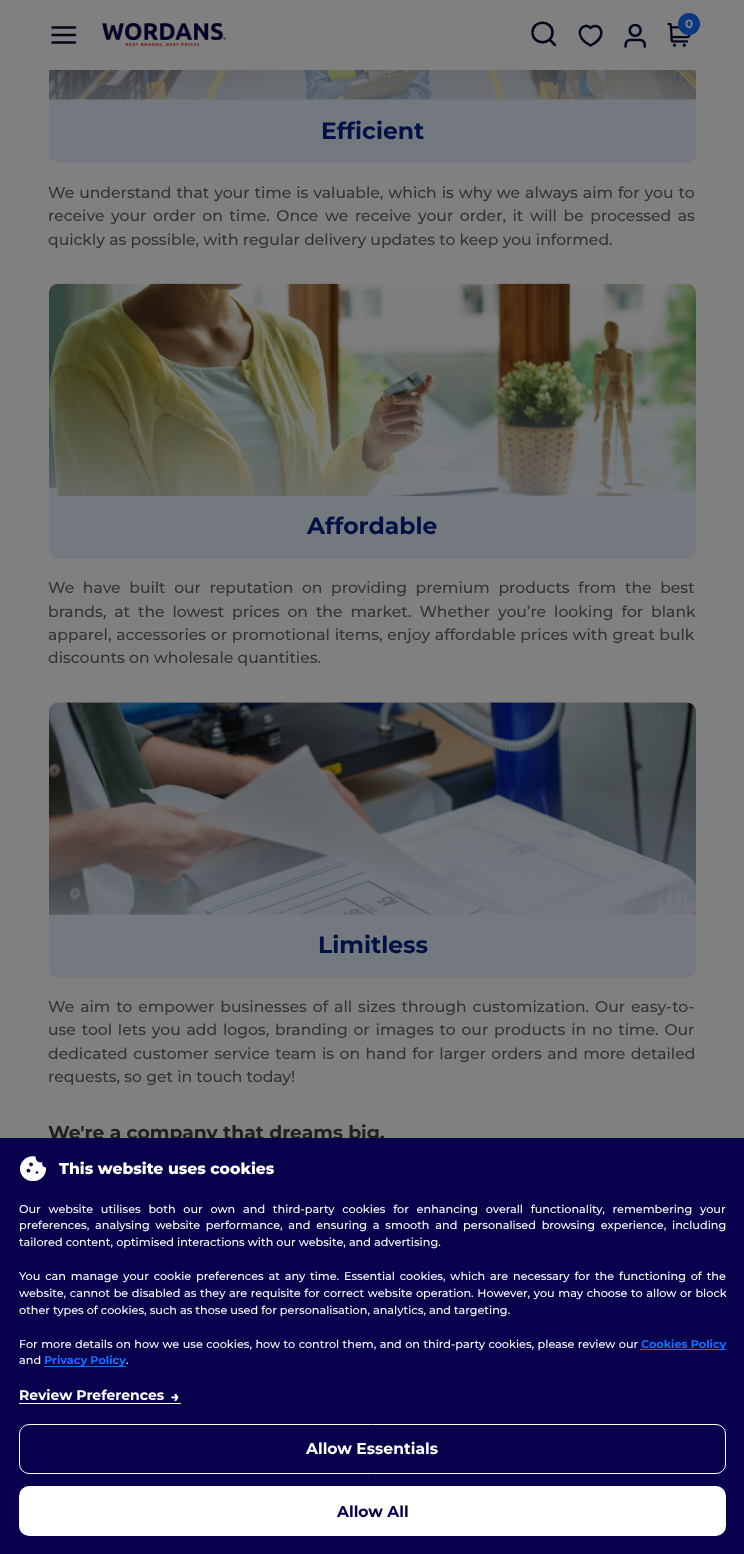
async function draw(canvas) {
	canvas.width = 744;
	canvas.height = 1554;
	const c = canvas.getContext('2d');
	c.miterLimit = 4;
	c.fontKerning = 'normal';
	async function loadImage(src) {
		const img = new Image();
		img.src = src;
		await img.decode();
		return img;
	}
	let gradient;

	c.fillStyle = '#808080';
	c.fillRect(0, 0, 744, 1554);
	c.drawImage(await loadImage('img4.png'), 49, 70, 647, 30);
	gradient = c.createLinearGradient(373, 163, 373, -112);
	gradient.addColorStop(0, '#747980');
	gradient.addColorStop(0.7, '#74798000');
	c.fillStyle = gradient;
	c.beginPath();
	c.roundRect(49, -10, 647, 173, 10);
	c.fill();
	c.fillStyle = '#808080';
	c.fillRect(49, 10, 647, 60);
	c.beginPath();
	c.moveTo(52.5, 35);
	c.lineTo(75, 35);
	c.moveTo(52.5, 27.5);
	c.lineTo(75, 27.5);
	c.moveTo(52.5, 42.5);
	c.lineTo(75, 42.5);
	c.strokeStyle = '#00071d';
	c.lineWidth = 2.5;
	c.lineCap = 'round';
	c.lineJoin = 'round';
	c.stroke();
	c.drawImage(await loadImage('img1.png'), 102, 23, 125, 24);
	c.beginPath();
	c.moveTo(555, 45);
	c.lineTo(549.5, 39.5);
	c.moveTo(552.5, 32.5);
	c.bezierCurveTo(552.5, 45.5, 532.5, 45.5, 532.5, 32.5);
	c.bezierCurveTo(532.5, 19.5, 552.5, 19.5, 552.5, 32.5);
	c.closePath();
	c.stroke();
	c.beginPath();
	c.moveTo(595, 26);
	c.bezierCurveTo(600, 26, 602.5, 31, 601, 35.5);
	c.bezierCurveTo(600, 38.5, 597, 41.5, 594, 43.5);
	c.lineTo(590.5, 45.5);
	c.lineTo(585, 42);
	c.bezierCurveTo(573, 31, 585, 21.5, 590.5, 28);
	c.bezierCurveTo(591.5, 27, 593, 26, 595, 26);
	c.closePath();
	c.stroke();
	c.drawImage(await loadImage('img2.png'), 624, 24, 22, 24);
	c.drawImage(await loadImage('img3.png'), 667, 22, 25, 25);
	c.fillStyle = '#093880';
	c.beginPath();
	c.arc(689, 24, 11, 0, 2 * Math.PI);
	c.fill();
	c.font = 'bold 12px Montserrat';
	c.fillStyle = '#808080';
	c.fillText('0', 685, 28);
	c.fillStyle = '#747980';
	c.beginPath();
	c.roundRect(49, 100, 647, 63, [0, 0, 10, 10]);
	c.fill();
	c.font = 'bold 23.5px Montserrat';
	c.fillStyle = '#001145';
	c.fillText('Efficient', 321, 139);
	c.wordSpacing = '0.75px';
	c.font = '500 15.6px Montserrat';
	c.fillStyle = '#333';
	c.fillText('We understand that your time is valuable, which is why we always aim for you to', 48, 198);
	c.wordSpacing = '2.4px';
	c.fillText('receive your order on time. Once we receive your order, it will be processed as', 48, 221);
	c.wordSpacing = '0px';
	c.fillText('quickly as possible, with regular delivery updates to keep you informed.', 48, 245);
	c.drawImage(await loadImage('img5.png'), 49, 283, 647, 213);
	gradient = c.createLinearGradient(373, 559, 373, 284);
	gradient.addColorStop(0, '#747980');
	gradient.addColorStop(0.7, '#74798000');
	c.fillStyle = gradient;
	c.beginPath();
	c.roundRect(49, 284, 647, 275, 10);
	c.fill();
	c.fillStyle = '#747980';
	c.beginPath();
	c.roundRect(49, 496, 647, 63, [0, 0, 10, 10]);
	c.fill();
	c.font = 'bold 23.5px Montserrat';
	c.fillStyle = '#001145';
	c.fillText('Affordable', 307, 534);
	c.wordSpacing = '4.4px';
	c.font = '500 15.6px Montserrat';
	c.fillStyle = '#333';
	c.fillText('We have built our reputation on providing premium products from the best', 48, 593);
	c.wordSpacing = '3.75px';
	c.fillText('brands, at the lowest prices on the market. Whether you’re looking for blank', 48, 617);
	c.wordSpacing = '0.5px';
	c.fillText('apparel, accessories or promotional items, enjoy affordable prices with great bulk', 48, 640);
	c.wordSpacing = '0px';
	c.fillText('discounts on wholesale quantities.', 48, 663);
	c.drawImage(await loadImage('img6.png'), 49, 702, 647, 213);
	gradient = c.createLinearGradient(373, 978, 373, 703);
	gradient.addColorStop(0, '#747980');
	gradient.addColorStop(0.7, '#74798000');
	c.fillStyle = gradient;
	c.beginPath();
	c.roundRect(49, 703, 647, 275, 10);
	c.fill();
	c.fillStyle = '#747980';
	c.beginPath();
	c.roundRect(49, 915, 647, 63, [0, 0, 10, 10]);
	c.fill();
	c.font = 'bold 23.5px Montserrat';
	c.fillStyle = '#001145';
	c.fillText('Limitless', 318, 953);
	c.wordSpacing = '1.75px';
	c.font = '500 15.6px Montserrat';
	c.fillStyle = '#333';
	c.fillText('We aim to empower businesses of all sizes through customization. Our easy-to-', 48, 1012);
	c.wordSpacing = '1.6px';
	c.fillText('use tool lets you add logos, branding or images to our products in no time. Our', 48, 1035);
	c.wordSpacing = '1.25px';
	c.fillText('dedicated customer service team is on hand for larger orders and more detailed', 48, 1059);
	c.wordSpacing = '0px';
	c.fillText('requests, so get in touch today!', 48, 1082);
	c.font = 'bold 18.75px Montserrat';
	c.fillStyle = '#212121';
	c.fillText('We\'re a company that dreams big.', 48, 1139);
	c.fillStyle = '#07014d';
	c.fillRect(0, 1138, 744, 416);
	c.drawImage(await loadImage('img7.png'), 19, 1156, 27, 25);
	c.font = '800 15.6px Montserrat';
	c.fillStyle = '#fff';
	c.fillText('This website uses cookies', 59, 1174);
	c.wordSpacing = '4.75px';
	c.font = '500 11.25px Montserrat';
	c.fillText('Our website utilises both our own and third-party cookies for enhancing overall functionality, remembering your', 19, 1213);
	c.wordSpacing = '2.75px';
	c.fillText('preferences, analysing website performance, and ensuring a smooth and personalised browsing experience, including', 19, 1229);
	c.wordSpacing = '0px';
	c.fillText('tailored content, optimised interactions with our website, and advertising.', 19, 1246);
	c.wordSpacing = '1.8px';
	c.fillText('You can manage your cookie preferences at any time. Essential cookies, which are necessary for the functioning of the', 19, 1280);
	c.wordSpacing = '0.6px';
	c.fillText('website, cannot be disabled as they are requisite for correct website operation. However, you may choose to allow or block', 19, 1297);
	c.wordSpacing = '0px';
	c.fillText('other types of cookies, such as those used for personalisation, analytics, and targeting.', 19, 1314);
	c.wordSpacing = '0.4px';
	c.fillText('For more details on how we use cookies, how to control them, and on third-party cookies, please review our', 19, 1348);
	c.fillStyle = '#1170ff';
	c.fillRect(640, 1349, 86, 1);
	c.wordSpacing = '0px';
	c.font = 'bold 11.25px Montserrat';
	c.fillText('Cookies Policy', 641, 1348);
	c.font = '500 11.25px Montserrat';
	c.fillStyle = '#fff';
	c.fillText('and', 19, 1364);
	c.fillStyle = '#1170ff';
	c.fillRect(44, 1366, 82, 1);
	c.font = 'bold 11.25px Montserrat';
	c.fillText('Privacy Policy', 44, 1364);
	c.font = '500 11.25px Montserrat';
	c.fillStyle = '#fff';
	c.fillText('.', 126, 1364);
	c.font = 'bold 14px Montserrat';
	c.fillText('Review Preferences', 19, 1400);
	c.drawImage(await loadImage('img8.png'), 171, 1394, 8, 7);
	c.fillRect(19, 1403, 162, 1);
	c.beginPath();
	c.roundRect(19.5, 1424.5, 706, 49, 9.5);
	c.strokeStyle = '#fff';
	c.lineWidth = 1;
	c.lineJoin = 'miter';
	c.stroke();
	c.font = 'bold 15.6px Montserrat';
	c.fillText('Allow Essentials', 306, 1454);
	c.beginPath();
	c.roundRect(19, 1486, 707, 50, 10);
	c.fill();
	c.fillStyle = '#07014d';
	c.fillText('Allow All', 337, 1517);
}

draw(document.querySelector('canvas'));
